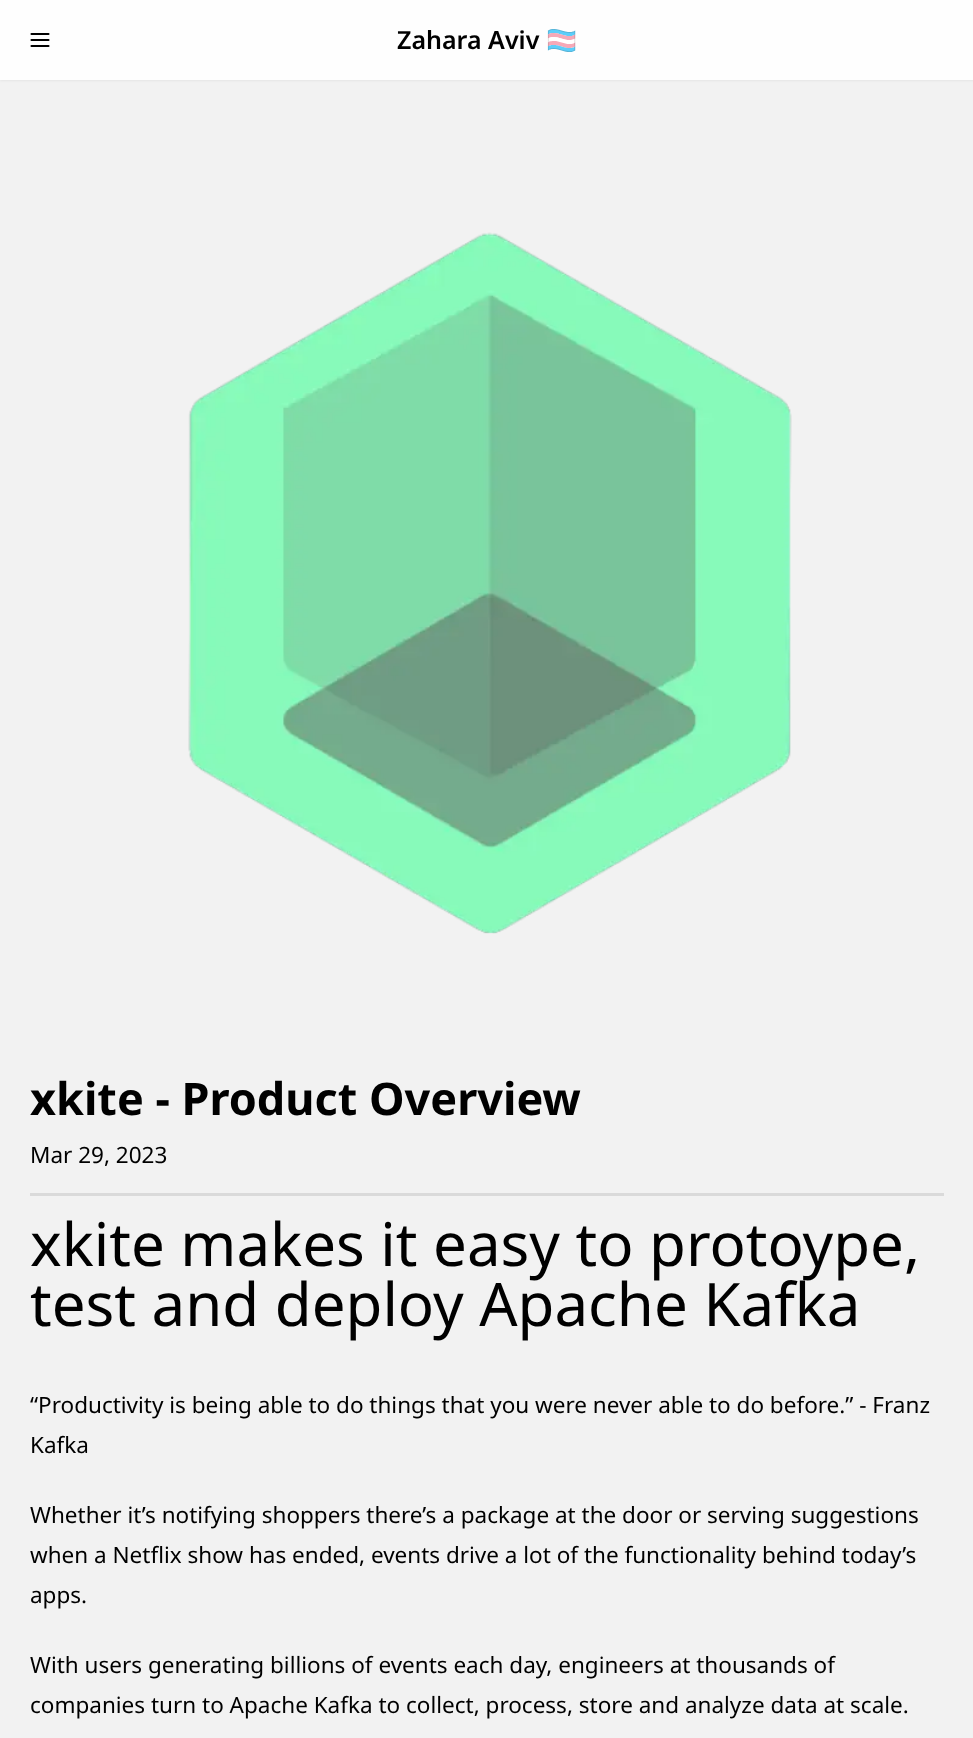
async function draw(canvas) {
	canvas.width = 973;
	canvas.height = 1738;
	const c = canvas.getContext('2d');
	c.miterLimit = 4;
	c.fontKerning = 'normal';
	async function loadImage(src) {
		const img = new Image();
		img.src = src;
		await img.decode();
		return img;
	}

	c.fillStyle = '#f2f2f2';
	c.fillRect(0, 0, 973, 1738);
	c.fillStyle = '#0000000d';
	c.filter = 'blur(1px)';
	c.beginPath();
	c.rect(0, 1, 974, 80);
	c.fill();
	c.filter = 'none';
	c.fillStyle = '#fefefe';
	c.fillRect(0, 0, 973, 80);
	c.beginPath();
	c.moveTo(31.5, 34);
	c.lineTo(48.5, 34);
	c.moveTo(31.5, 40);
	c.lineTo(48.5, 40);
	c.moveTo(31.5, 46);
	c.lineTo(48.5, 46);
	c.strokeStyle = '#000';
	c.lineWidth = 2.1;
	c.lineCap = 'round';
	c.lineJoin = 'round';
	c.stroke();
	c.font = '600 25px Noto Sans';
	c.fillStyle = '#000';
	c.fillText('Zahara Aviv', 397, 49);
	c.font = '25px Noto Color Emoji';
	c.fillText('🏳️‍⚧️', 546, 49);
	c.drawImage(await loadImage('img1.png'), 188, 232, 604, 702);
	c.font = 'bold 45px Noto Sans';
	c.fillText('xkite - Product Overview', 30, 1115);
	c.font = '22.5px Noto Sans';
	c.fillText('Mar 29, 2023', 30, 1163);
	c.fillStyle = '#dadada';
	c.fillRect(30, 1193, 914, 3);
	c.font = '60px Noto Sans';
	c.fillStyle = '#000';
	c.fillText('xkite makes it easy to protoype,', 30, 1266);
	c.fillText('test and deploy Apache Kafka', 30, 1326);
	c.font = '22.5px Noto Sans';
	for (const [text, x, y] of [
		['“Productivity is being able to do things that you were never able to do before.” - Franz', 30, 1413],
		['Kafka', 30, 1453],
		['Whether it’s notifying shoppers there’s a package at the door or serving suggestions', 30, 1523],
		['when a Netflix show has ended, events drive a lot of the functionality behind today’s', 30, 1563],
		['apps.', 30, 1603],
		['With users generating billions of events each day, engineers at thousands of', 30, 1673],
		['companies turn to Apache Kafka to collect, process, store and analyze data at scale.', 30, 1713],
	]) {
		c.fillText(text, x, y);
	}
}

draw(document.querySelector('canvas'));
